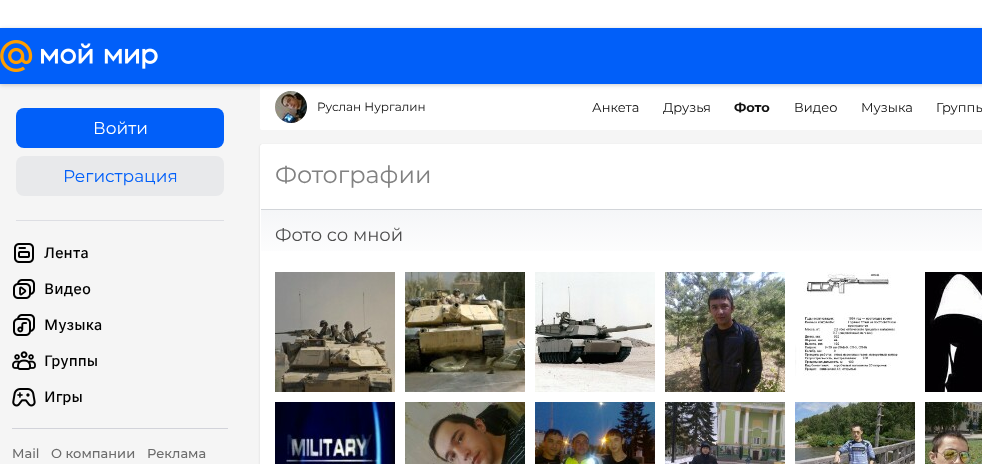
async function draw(canvas) {
	canvas.width = 982;
	canvas.height = 464;
	const c = canvas.getContext('2d');
	c.miterLimit = 4;
	c.fontKerning = 'normal';
	async function loadImage(src) {
		const img = new Image();
		img.src = src;
		await img.decode();
		return img;
	}
	let gradient;

	c.fillStyle = '#f5f5f5';
	c.fillRect(0, 0, 982, 464);
	c.fillStyle = '#fff';
	c.fillRect(0, 0, 982, 28);
	c.beginPath();
	c.moveTo(260, 84);
	c.lineTo(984, 84);
	c.lineTo(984, 128);
	c.bezierCurveTo(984, 129, 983, 130, 982, 130);
	c.lineTo(262, 130);
	c.bezierCurveTo(261, 130, 260, 129, 260, 128);
	c.closePath();
	c.fill();
	c.fillStyle = '#f0f0f0';
	c.beginPath();
	c.arc(291, 107, 16, 0, 2 * Math.PI);
	c.fill();
	c.drawImage(await loadImage('img7.png'), 275, 91, 32, 32);
	c.fillStyle = '#00000033';
	c.filter = 'blur(2px)';
	c.beginPath();
	c.rect(0, 29, 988, 56);
	c.fill();
	c.filter = 'none';
	c.fillStyle = '#015ff9';
	c.fillRect(0, 28, 982, 56);
	c.drawImage(await loadImage('img1.png'), 0, 40, 158, 32);
	c.beginPath();
	c.roundRect(16, 108, 208, 40, 8);
	c.fill();
	c.font = '17px Montserrat';
	c.fillStyle = '#fff';
	c.fillText('Войти', 93, 134);
	c.fillStyle = '#e8e9eb';
	c.beginPath();
	c.roundRect(16, 156, 208, 40, 8);
	c.fill();
	c.fillStyle = '#015ff9';
	c.fillText('Регистрация', 63, 182);
	c.fillStyle = '#dddee3';
	c.fillRect(16, 220, 208, 1);
	c.drawImage(await loadImage('img2.png'), 14, 243, 20, 20);
	c.font = '500 15px "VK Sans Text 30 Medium"';
	c.fillStyle = '#000';
	c.fillText('Лента', 44, 258);
	c.drawImage(await loadImage('img3.png'), 13, 279, 22, 20);
	c.fillText('Видео', 44, 294);
	c.drawImage(await loadImage('img4.png'), 13, 314, 22, 22);
	c.fillText('Музыка', 44, 330);
	c.drawImage(await loadImage('img5.png'), 12, 351, 24, 19);
	c.fillText('Группы', 44, 366);
	c.drawImage(await loadImage('img6.png'), 12, 388, 24, 19);
	c.fillText('Игры', 44, 402);
	c.fillStyle = '#d2d3da';
	c.fillRect(12, 428, 216, 1);
	c.font = '500 13px Montserrat';
	c.fillStyle = '#6c6c6c';
	for (const [text, x, y] of [
		['Mail', 12, 458],
		['О компании', 51, 458],
		['Реклама', 147, 458],
	]) {
		c.fillText(text, x, y);
	}
	c.fillStyle = '#0000001f';
	c.filter = 'blur(1px)';
	c.beginPath();
	c.roundRect(260, 145, 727, 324, 2);
	c.fill();
	c.filter = 'none';
	c.fillStyle = '#00000026';
	c.filter = 'blur(0.5px)';
	c.beginPath();
	c.roundRect(260, 144, 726, 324, 2);
	c.fill();
	c.filter = 'none';
	c.fillStyle = '#fff';
	c.beginPath();
	c.roundRect(260, 144, 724, 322, 2);
	c.fill();
	c.font = '12px Montserrat';
	c.fillStyle = '#111';
	c.fillText('Руслан Нургалин', 317, 111);
	c.font = '13px Montserrat';
	c.fillText('Анкета', 592, 112);
	c.fillText('Друзья', 663, 112);
	c.font = 'bold 13px Montserrat';
	c.fillText('Фото', 734, 112);
	c.font = '13px Montserrat';
	for (const [text, x, y] of [
		['Видео', 794, 112],
		['Музыка', 861, 112],
		['Группы', 936, 112],
	]) {
		c.fillText(text, x, y);
	}
	c.font = '24px Montserrat';
	c.fillStyle = '#818181';
	c.fillText('Фотографии', 275, 183);
	gradient = c.createLinearGradient(663, 210, 663, 265);
	gradient.addColorStop(0, '#f5f6f8');
	gradient.addColorStop(1, '#fff');
	c.fillStyle = gradient;
	c.fillRect(261, 210, 721, 41);
	c.fillStyle = '#d2d5d9';
	c.fillRect(261, 209, 721, 1);
	c.font = '18px Montserrat';
	c.fillStyle = '#4d4d4d';
	c.fillText('Фото со мной', 275, 241);
	c.drawImage(await loadImage('img8.png'), 275, 272, 120, 120);
	c.drawImage(await loadImage('img9.png'), 405, 272, 120, 120);
	c.drawImage(await loadImage('img10.png'), 535, 272, 120, 120);
	c.drawImage(await loadImage('img11.png'), 665, 272, 120, 120);
	c.drawImage(await loadImage('img12.png'), 795, 272, 104, 104);
	c.drawImage(await loadImage('img13.png'), 925, 272, 57, 120);
	c.drawImage(await loadImage('img14.png'), 275, 402, 120, 62);
	c.drawImage(await loadImage('img15.png'), 405, 402, 120, 62);
	c.drawImage(await loadImage('img16.png'), 535, 402, 120, 62);
	c.drawImage(await loadImage('img17.png'), 665, 402, 120, 62);
	c.drawImage(await loadImage('img18.png'), 795, 402, 120, 62);
	c.drawImage(await loadImage('img19.png'), 925, 402, 57, 62);
}

draw(document.querySelector('canvas'));
